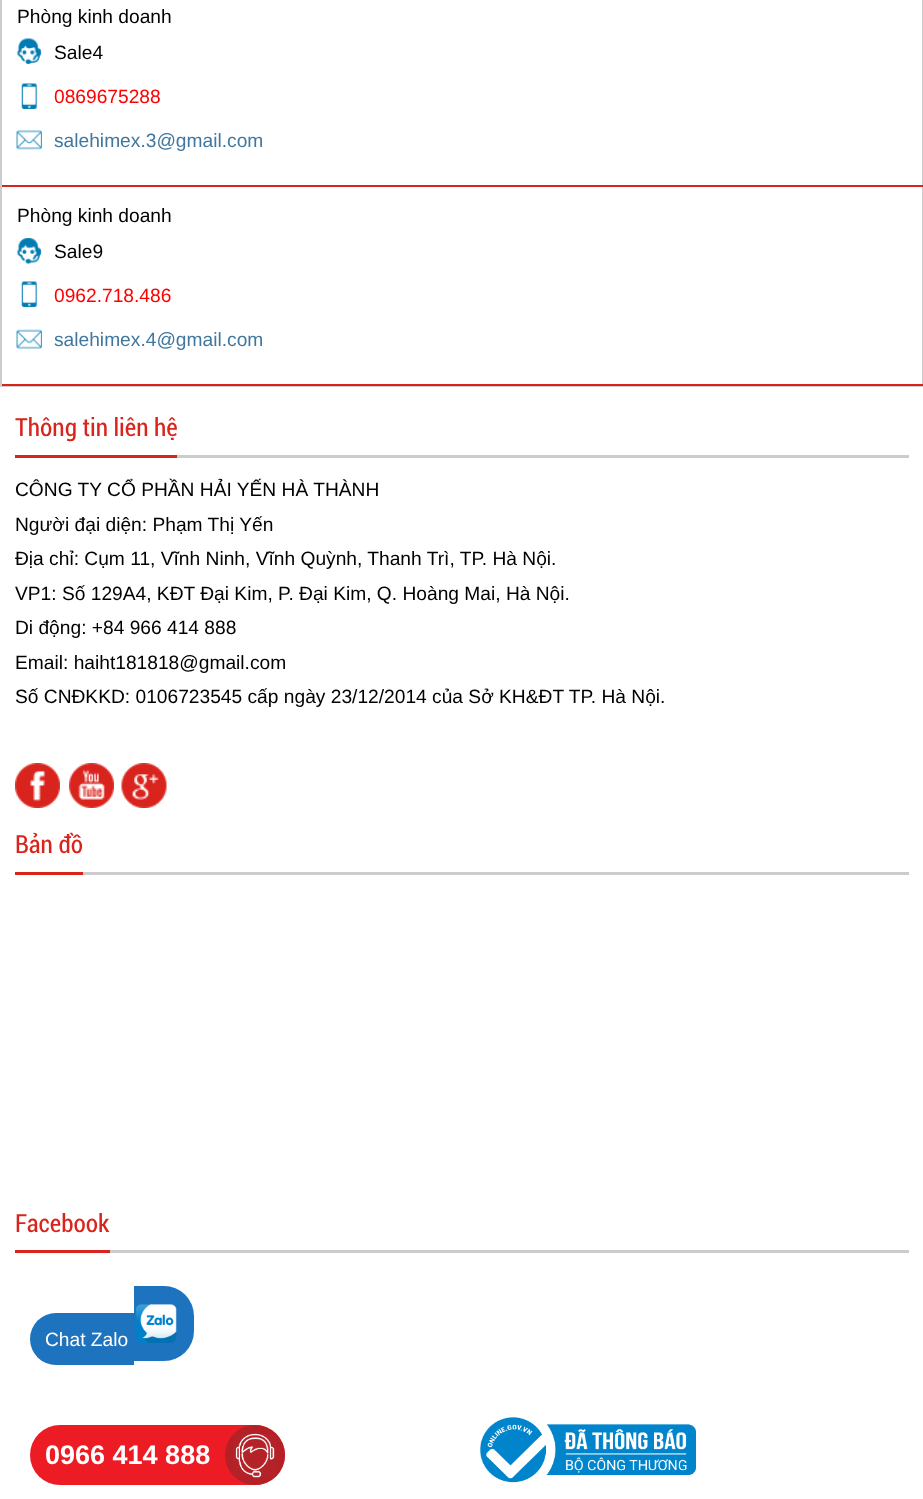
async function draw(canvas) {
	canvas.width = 923;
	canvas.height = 1499;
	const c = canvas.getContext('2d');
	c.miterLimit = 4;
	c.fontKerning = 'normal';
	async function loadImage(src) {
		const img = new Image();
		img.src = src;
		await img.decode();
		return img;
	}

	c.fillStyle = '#fff';
	c.fillRect(0, 0, 923, 1499);
	c.strokeStyle = '#ccc';
	c.lineWidth = 2;
	c.strokeRect(1, -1, 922, 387);
	c.fillStyle = '#d9241d';
	c.fillRect(2, 185, 921, 2);
	c.font = '19.2px Liberation Sans';
	c.fillStyle = '#000';
	c.fillText('Phòng kinh doanh', 17, 23);
	c.drawImage(await loadImage('img1.png'), 16, 38, 26, 26);
	c.fillText('Sale4', 54, 59);
	c.drawImage(await loadImage('img2.png'), 21, 83, 17, 26);
	c.fillStyle = '#f00';
	c.fillText('0869675288', 54, 103);
	c.drawImage(await loadImage('img3.png'), 16, 130, 26, 20);
	c.fillStyle = '#3f779e';
	c.fillText('salehimex.3@gmail.com', 54, 147);
	c.fillStyle = '#d9241d';
	c.fillRect(2, 384, 921, 2);
	c.fillStyle = '#000';
	c.fillText('Phòng kinh doanh', 17, 222);
	c.drawImage(await loadImage('img4.png'), 16, 238, 26, 26);
	c.fillText('Sale9', 54, 258);
	c.drawImage(await loadImage('img2.png'), 21, 281, 17, 26);
	c.fillStyle = '#f00';
	c.fillText('0962.718.486', 54, 302);
	c.drawImage(await loadImage('img5.png'), 16, 329, 26, 20);
	c.fillStyle = '#3f779e';
	c.fillText('salehimex.4@gmail.com', 54, 346);
	c.fillStyle = '#ccc';
	c.fillRect(177, 455, 732, 3);
	c.font = '25px Roboto';
	c.fillStyle = '#d9241d';
	c.fillText('Thông tin liên hệ', 15, 436);
	c.fillRect(15, 455, 162, 3);
	c.font = '19.2px Liberation Sans';
	c.fillStyle = '#000';
	for (const [text, x, y] of [
		['CÔNG TY CỔ PHẦN HẢI YẾN HÀ THÀNH', 15, 496],
		['Người đại diện: Phạm Thị Yến', 15, 531],
		['Địa chỉ: Cụm 11, Vĩnh Ninh, Vĩnh Quỳnh, Thanh Trì, TP. Hà Nội.', 15, 565],
		['VP1: Số 129A4, KĐT Đại Kim, P. Đại Kim, Q. Hoàng Mai, Hà Nội.', 15, 600],
		['Di động: +84 966 414 888', 15, 634],
		['Email: haiht181818@gmail.com', 15, 669],
		['Số CNĐKKD: 0106723545 cấp ngày 23/12/2014 của Sở KH&ĐT TP. Hà Nội.', 15, 703],
	]) {
		c.fillText(text, x, y);
	}
	c.drawImage(await loadImage('img6.png'), 15, 763, 45, 45);
	c.drawImage(await loadImage('img7.png'), 69, 763, 45, 45);
	c.drawImage(await loadImage('img8.png'), 121, 763, 46, 45);
	c.fillStyle = '#ccc';
	c.fillRect(83, 872, 826, 3);
	c.font = '25px Roboto';
	c.fillStyle = '#d9241d';
	c.fillText('Bản đồ', 15, 853);
	c.fillRect(15, 872, 68, 3);
	c.fillStyle = '#ccc';
	c.fillRect(110, 1250, 799, 3);
	c.fillStyle = '#d9241d';
	c.fillText('Facebook', 15, 1232);
	c.fillRect(15, 1250, 95, 3);
	c.drawImage(await loadImage('img9.png'), 480, 1417, 216, 66);
	c.fillStyle = '#1e73be';
	c.beginPath();
	c.roundRect(30, 1313, 104, 52, [26, 0, 0, 26]);
	c.fill();
	c.font = '19.2px Liberation Sans';
	c.fillStyle = '#fff';
	c.fillText('Chat Zalo', 45, 1346);
	c.fillStyle = '#1e73be';
	c.beginPath();
	c.roundRect(134, 1286, 60, 75, [0, 30, 30, 0]);
	c.fill();
	c.drawImage(await loadImage('img10.png'), 135, 1304, 42, 39);
	c.fillStyle = '#ed1c24';
	c.beginPath();
	c.roundRect(30, 1425, 255, 60, 30);
	c.fill();
	c.font = 'bold 27px Liberation Sans';
	c.fillStyle = '#fff';
	c.fillText('0966 414 888', 45, 1464);
	c.fillStyle = '#b52026';
	c.beginPath();
	c.arc(255, 1455, 30, 0, 2 * Math.PI);
	c.fill();
	c.drawImage(await loadImage('img11.png'), 233, 1433, 44, 45);
}

draw(document.querySelector('canvas'));
